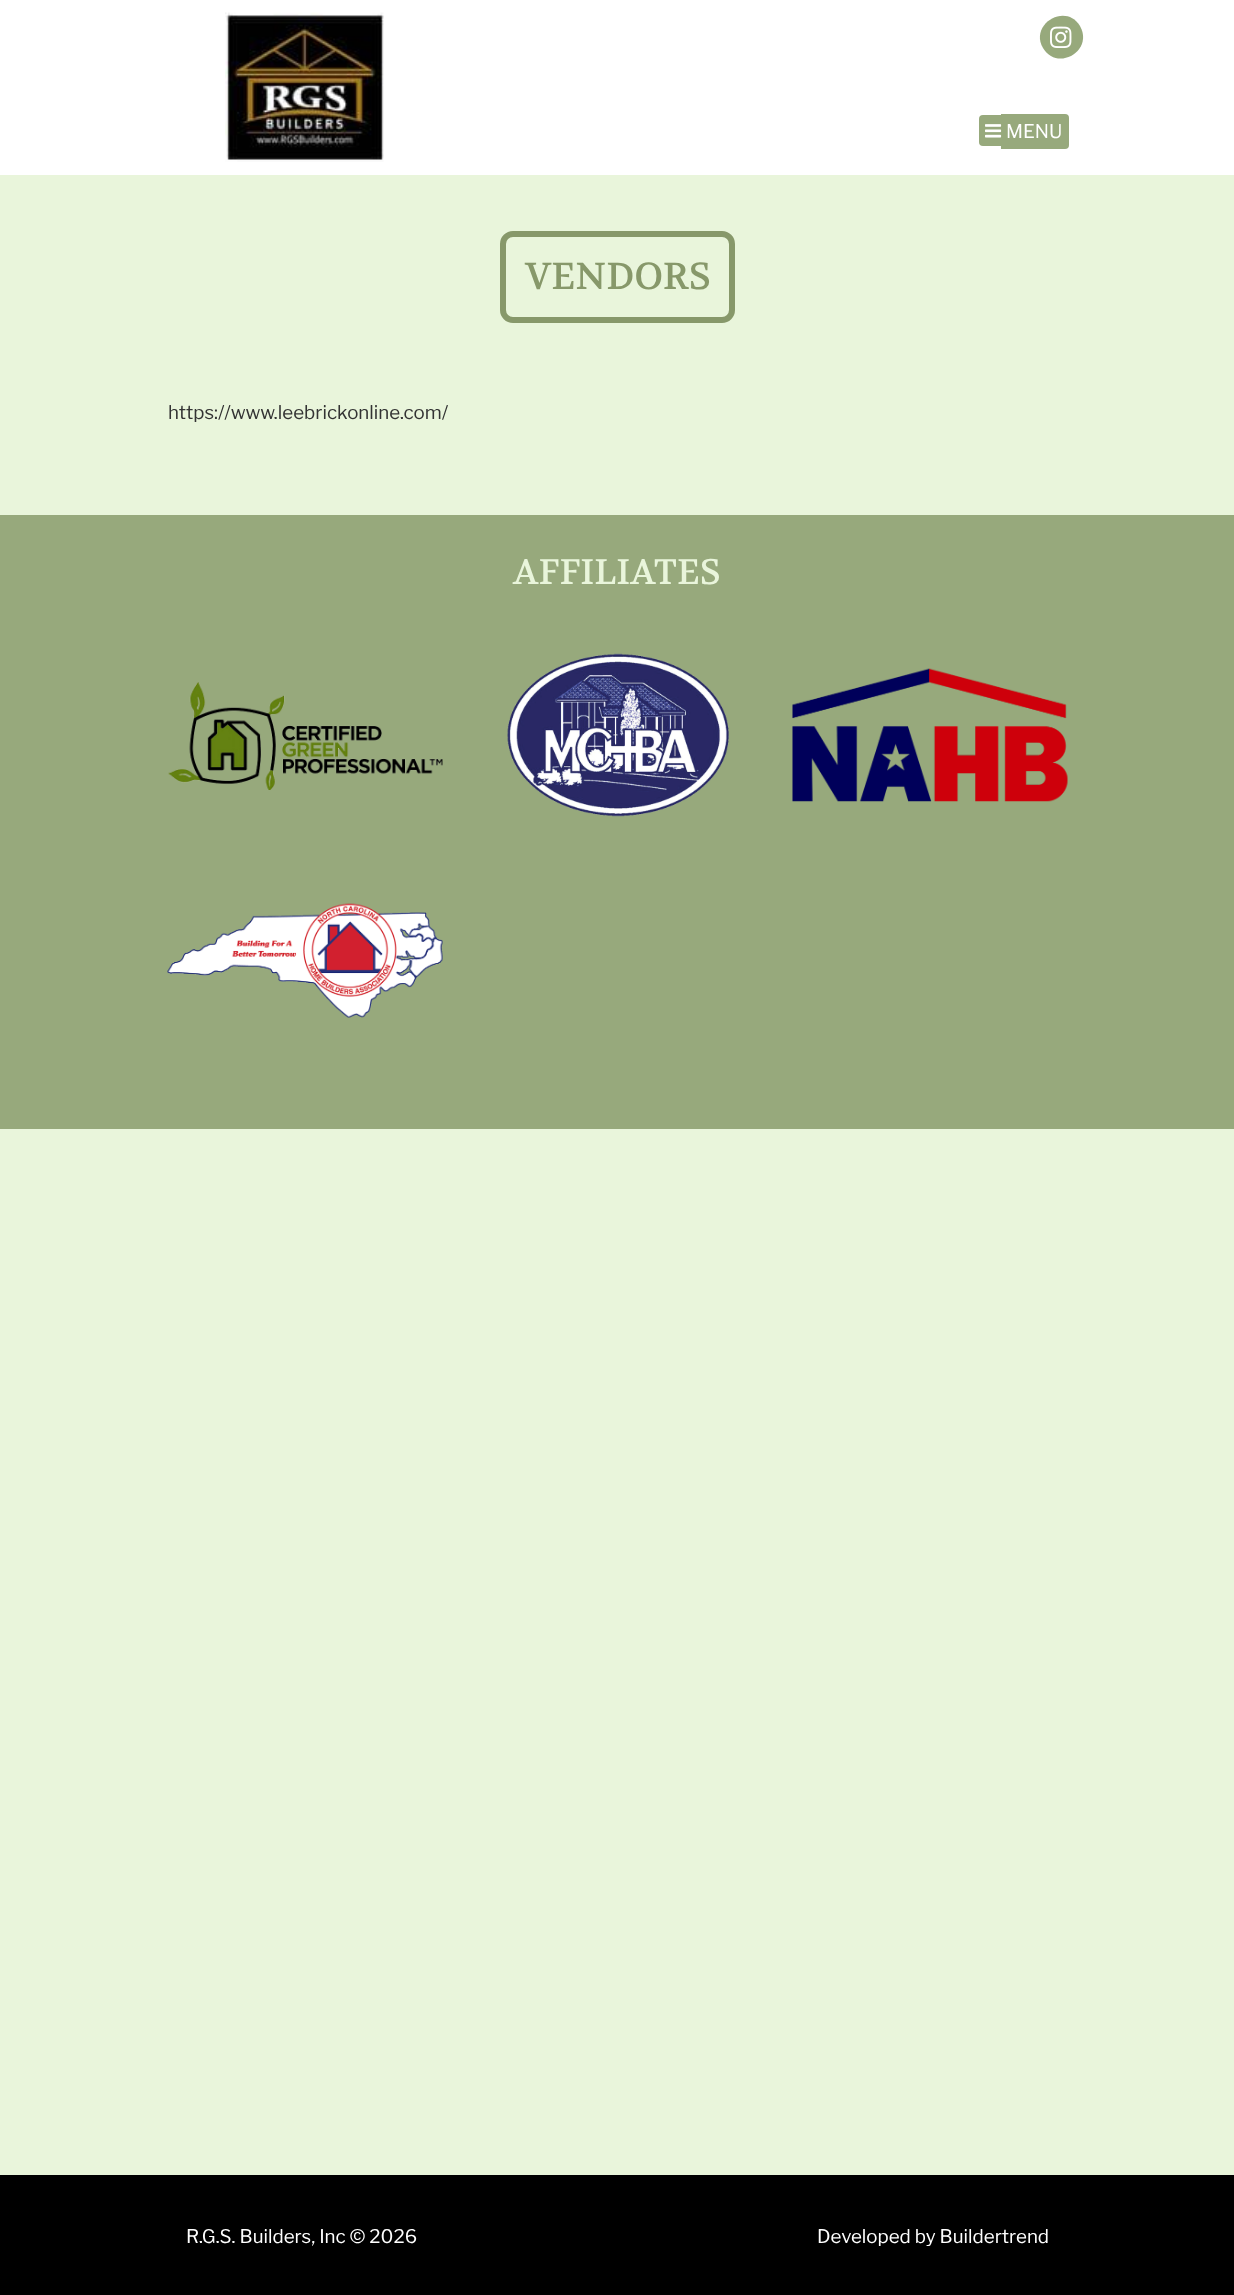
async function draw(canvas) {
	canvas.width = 1234;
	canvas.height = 2295;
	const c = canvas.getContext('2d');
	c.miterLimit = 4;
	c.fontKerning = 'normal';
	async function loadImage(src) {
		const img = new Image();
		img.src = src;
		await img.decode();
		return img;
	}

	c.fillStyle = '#e9f5db';
	c.fillRect(0, 0, 1234, 2295);
	c.fillStyle = '#fff';
	c.fillRect(0, 0, 1234, 175);
	c.drawImage(await loadImage('img1.png'), 225, 12, 159, 150);
	c.fillStyle = '#97a97c';
	c.beginPath();
	c.moveTo(1080, 26);
	c.bezierCurveTo(1094, 51, 1057, 72, 1043, 48);
	c.bezierCurveTo(1029, 24, 1066, 2, 1080, 26);
	c.closePath();
	c.fill();
	c.drawImage(await loadImage('img2.png'), 1050, 26, 22, 22);
	c.beginPath();
	c.roundRect(979, 115, 22, 31, [4, 0, 0, 4]);
	c.fill();
	c.beginPath();
	c.roundRect(1001, 114, 68, 35, [0, 4, 4, 0]);
	c.fill();
	c.drawImage(await loadImage('img3.png'), 985, 124, 17, 14);
	c.font = '100 18.75px Libre Franklin';
	c.fillStyle = '#fff';
	c.fillText('MENU', 1006, 138);
	c.beginPath();
	c.roundRect(503, 234, 229, 86, 10);
	c.strokeStyle = '#87986a';
	c.lineWidth = 6;
	c.stroke();
	c.font = '37.5px Volkhov';
	c.fillStyle = '#87986a';
	c.fillText('VENDORS', 525, 289);
	c.font = '100 18.75px Libre Franklin';
	c.fillStyle = '#333';
	c.fillText('https://www.leebrickonline.com/', 168, 419);
	c.fillStyle = '#97a97c';
	c.fillRect(0, 515, 1234, 614);
	c.font = '35.5px Volkhov';
	c.fillStyle = '#e9f5db';
	c.fillText('AFFILIATES', 513, 584);
	c.drawImage(await loadImage('img4.png'), 168, 682, 275, 108);
	c.drawImage(await loadImage('img5.png'), 507, 653, 222, 164);
	c.drawImage(await loadImage('img6.png'), 792, 668, 276, 134);
	c.drawImage(await loadImage('img7.png'), 167, 903, 276, 115);
	c.fillStyle = '#000';
	c.fillRect(0, 2175, 1234, 120);
	c.font = '100 18.75px Libre Franklin';
	c.fillStyle = '#fff';
	c.fillText('R.G.S. Builders, Inc © 2026', 186, 2243);
	c.fillText('Developed by Buildertrend', 817, 2243);
}

draw(document.querySelector('canvas'));
